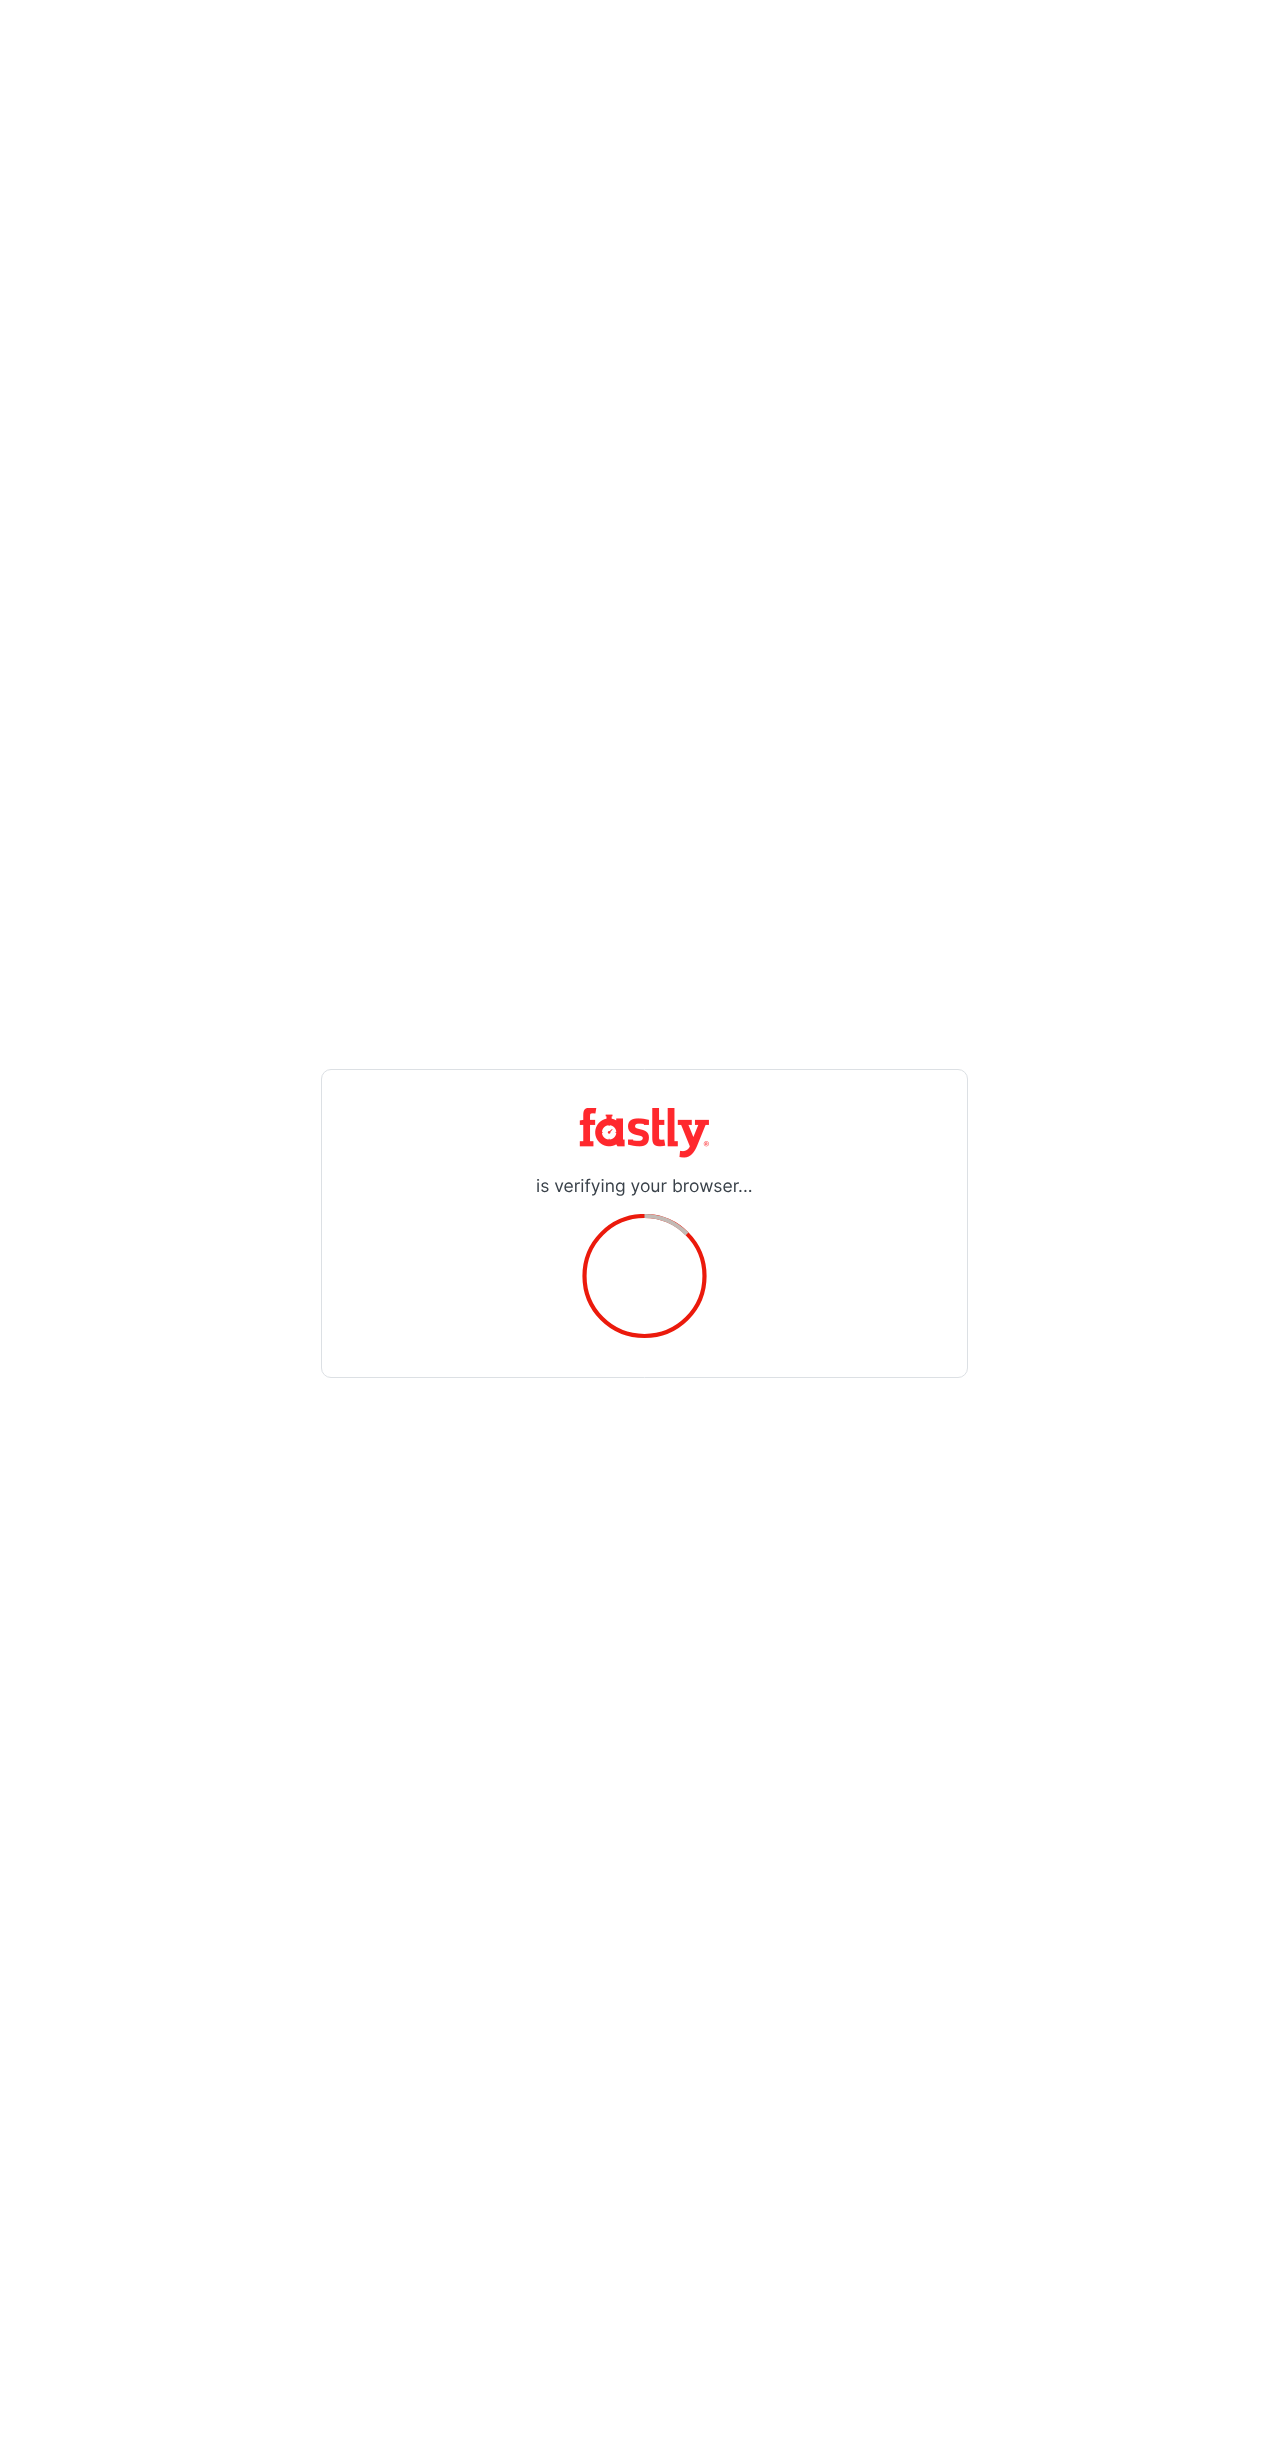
async function draw(canvas) {
	canvas.width = 1288;
	canvas.height = 2445;
	const c = canvas.getContext('2d');
	c.miterLimit = 4;
	c.fontKerning = 'normal';
	async function loadImage(src) {
		const img = new Image();
		img.src = src;
		await img.decode();
		return img;
	}

	c.fillStyle = '#fff';
	c.fillRect(0, 0, 1288, 2445);
	c.beginPath();
	c.roundRect(321.5, 1069.5, 646, 308, 9.5);
	c.strokeStyle = '#dce0e4';
	c.stroke();
	c.drawImage(await loadImage('img1.png'), 579, 1108, 130, 50);
	c.font = '17.5px Inter';
	c.fillStyle = '#3a424a';
	c.fillText('is verifying your browser...', 536, 1192);
	c.save();
	c.beginPath();
	c.rect(360, 1214, 569, 125);
	c.clip();
	c.beginPath();
	c.moveTo(584.5, 1276);
	c.bezierCurveTo(584.5, 1243, 611, 1216, 644.5, 1216);
	c.bezierCurveTo(677.5, 1216, 704.5, 1243, 704.5, 1276);
	c.bezierCurveTo(704.5, 1309.5, 677.5, 1336, 644.5, 1336);
	c.bezierCurveTo(611, 1336, 584.5, 1309.5, 584.5, 1276);
	c.closePath();
	c.strokeStyle = '#eb1a0c';
	c.lineWidth = 4.2;
	c.stroke();
	c.restore();
	c.beginPath();
	c.moveTo(687, 1234);
	c.bezierCurveTo(675.5, 1222.5, 660.5, 1216, 644.5, 1216);
	c.strokeStyle = '#c2bab5';
	c.lineWidth = 4.2;
	c.stroke();
}

draw(document.querySelector('canvas'));
